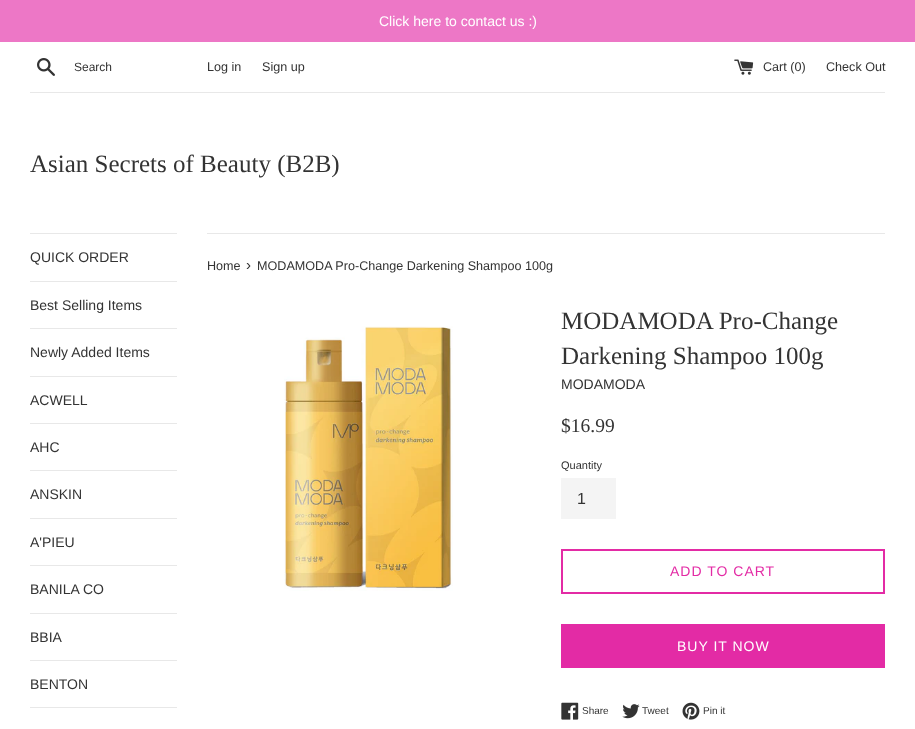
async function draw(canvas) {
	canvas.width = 915;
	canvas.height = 729;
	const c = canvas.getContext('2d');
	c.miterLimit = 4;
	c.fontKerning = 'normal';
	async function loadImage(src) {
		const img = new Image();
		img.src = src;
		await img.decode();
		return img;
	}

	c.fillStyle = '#fff';
	c.fillRect(0, 0, 915, 729);
	c.fillStyle = '#ed77c6';
	c.fillRect(0, 0, 915, 42);
	c.font = '14px Liberation Sans';
	c.fillStyle = '#fff';
	c.fillText('Click here to contact us :)', 379, 26);
	c.drawImage(await loadImage('img1.png'), 37, 58, 18, 18);
	c.font = '12px Liberation Sans';
	c.fillStyle = '#333';
	c.fillText('Search', 74, 71);
	c.font = '12.6px Liberation Sans';
	c.fillText('Log in', 207, 71);
	c.fillText('Sign up', 262, 71);
	c.drawImage(await loadImage('img2.png'), 734, 59, 20, 16);
	c.fillText('Cart (0)', 763, 71);
	c.fillText('Check Out', 826, 71);
	c.fillStyle = '#e8e8e8';
	c.fillRect(30, 92, 855, 1);
	c.font = '25px Liberation Serif';
	c.fillStyle = '#333';
	c.fillText('Asian Secrets of Beauty (B2B)', 30, 172);
	c.fillStyle = '#e8e8e8';
	c.fillRect(30, 233, 147, 1);
	c.fillRect(30, 281, 147, 1);
	c.font = '14px Liberation Sans';
	c.fillStyle = '#333';
	c.fillText('QUICK ORDER', 30, 262);
	c.fillStyle = '#e8e8e8';
	c.fillRect(30, 328, 147, 1);
	c.fillStyle = '#333';
	c.fillText('Best Selling Items', 30, 310);
	c.fillStyle = '#e8e8e8';
	c.fillRect(30, 376, 147, 1);
	c.fillStyle = '#333';
	c.fillText('Newly Added Items', 30, 357);
	c.fillStyle = '#e8e8e8';
	c.fillRect(30, 423, 147, 1);
	c.fillStyle = '#333';
	c.fillText('ACWELL', 30, 405);
	c.fillStyle = '#e8e8e8';
	c.fillRect(30, 470, 147, 1);
	c.fillStyle = '#333';
	c.fillText('AHC', 30, 452);
	c.fillStyle = '#e8e8e8';
	c.fillRect(30, 518, 147, 1);
	c.fillStyle = '#333';
	c.fillText('ANSKIN', 30, 499);
	c.fillStyle = '#e8e8e8';
	c.fillRect(30, 565, 147, 1);
	c.fillStyle = '#333';
	c.fillText('A\'PIEU', 30, 547);
	c.fillStyle = '#e8e8e8';
	c.fillRect(30, 613, 147, 1);
	c.fillStyle = '#333';
	c.fillText('BANILA CO', 30, 594);
	c.fillStyle = '#e8e8e8';
	c.fillRect(30, 660, 147, 1);
	c.fillStyle = '#333';
	c.fillText('BBIA', 30, 642);
	c.fillStyle = '#e8e8e8';
	c.fillRect(30, 707, 147, 1);
	c.fillStyle = '#333';
	c.fillText('BENTON', 30, 689);
	c.fillStyle = '#e8e8e8';
	c.fillRect(207, 233, 678, 1);
	c.font = '12.6px Liberation Sans';
	c.fillStyle = '#333';
	c.fillText('Home', 207, 270);
	c.font = '15px Liberation Sans';
	c.fillText('›', 246, 270);
	c.font = '12.6px Liberation Sans';
	c.fillText('MODAMODA Pro-Change Darkening Shampoo 100g', 257, 270);
	c.drawImage(await loadImage('img3.png'), 284, 326, 169, 265);
	c.font = '25px Liberation Serif';
	c.fillText('MODAMODA Pro-Change', 561, 329);
	c.fillText('Darkening Shampoo 100g', 561, 364);
	c.font = '14px Liberation Sans';
	c.fillText('MODAMODA', 561, 389);
	c.font = '19.5px Liberation Serif';
	c.fillText('$16.99', 561, 432);
	c.font = '11px Liberation Sans';
	c.fillText('Quantity', 561, 469);
	c.fillStyle = '#f4f4f4';
	c.fillRect(561, 478, 55, 41);
	c.font = '16px Liberation Sans';
	c.fillStyle = '#333';
	c.fillText('1', 577, 504);
	c.strokeStyle = '#e32ba5';
	c.lineWidth = 2;
	c.strokeRect(562, 550, 322, 43);
	c.letterSpacing = '1px';
	c.font = '14px Liberation Sans';
	c.fillStyle = '#e32ba5';
	c.fillText('ADD TO CART', 670, 576);
	c.fillRect(561, 624, 324, 44);
	c.fillStyle = '#fff';
	c.fillText('BUY IT NOW', 677, 651);
	c.drawImage(await loadImage('img4.png'), 561, 702, 18, 18);
	c.letterSpacing = '0px';
	c.font = '10px Liberation Sans';
	c.fillStyle = '#333';
	c.fillText('Share', 582, 714);
	c.drawImage(await loadImage('img5.png'), 622, 704, 18, 15);
	c.fillText('Tweet', 642, 714);
	c.drawImage(await loadImage('img6.png'), 682, 702, 18, 18);
	c.fillText('Pin it', 703, 714);
}

draw(document.querySelector('canvas'));
